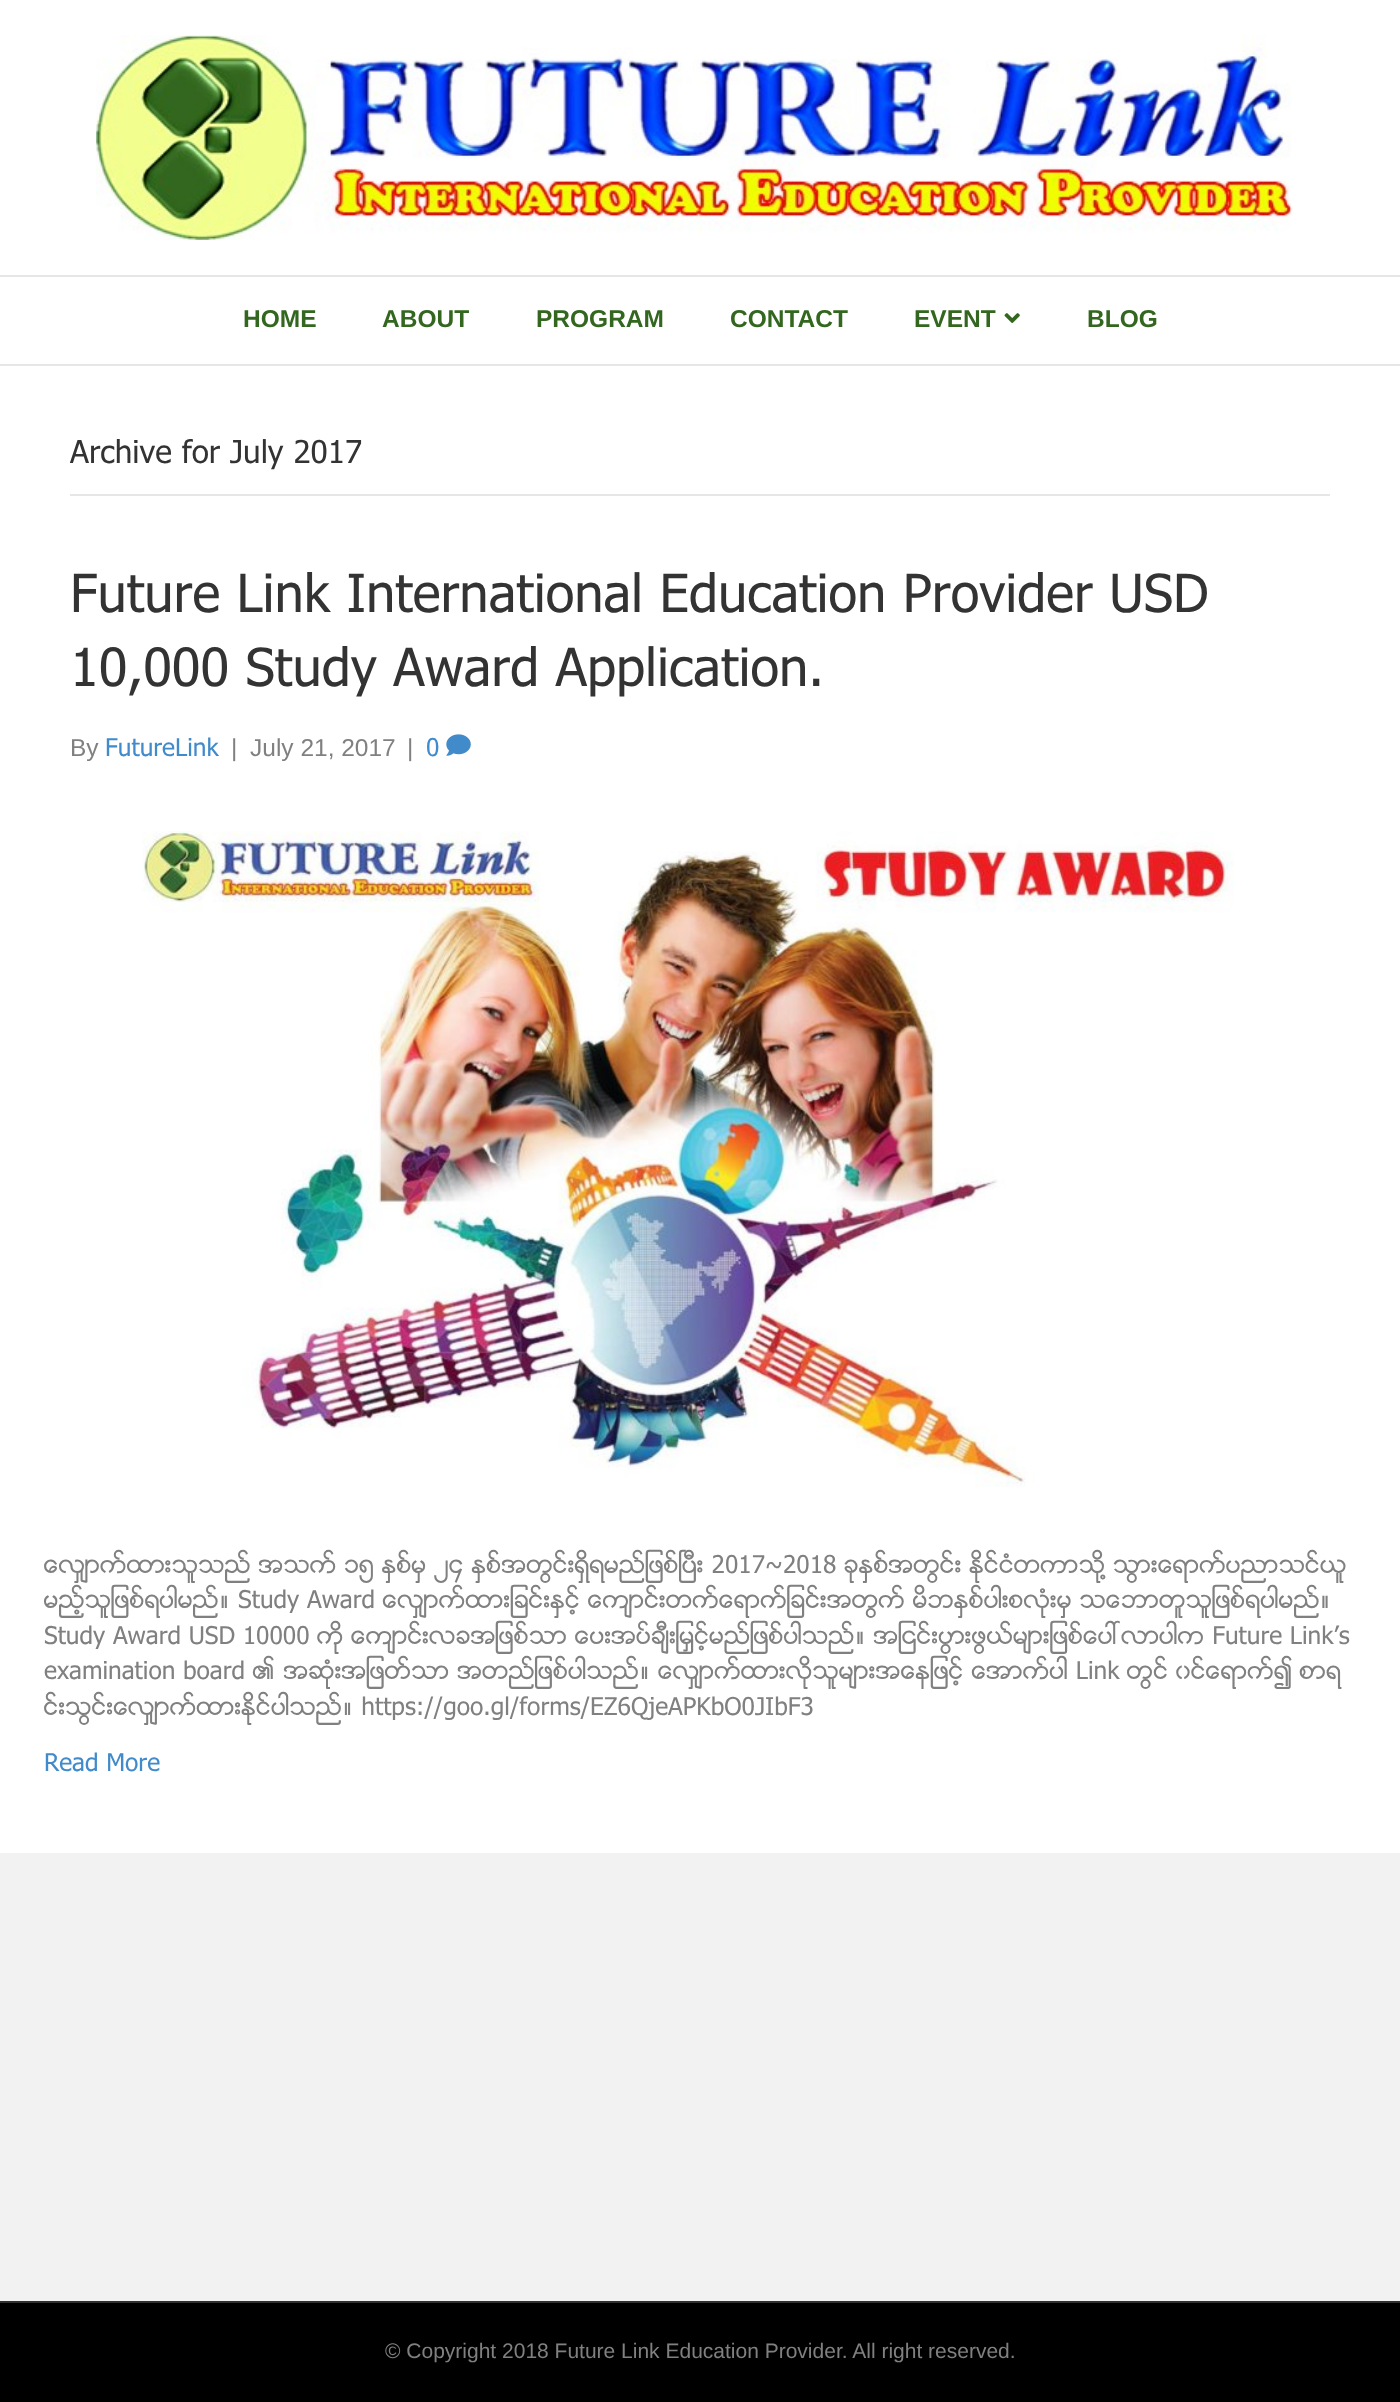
async function draw(canvas) {
	canvas.width = 1400;
	canvas.height = 2402;
	const c = canvas.getContext('2d');
	c.miterLimit = 4;
	c.fontKerning = 'normal';
	async function loadImage(src) {
		const img = new Image();
		img.src = src;
		await img.decode();
		return img;
	}

	c.fillStyle = '#f2f2f2';
	c.fillRect(0, 0, 1400, 2402);
	c.fillStyle = '#fff';
	c.fillRect(0, 0, 1400, 364);
	c.drawImage(await loadImage('img1.png'), 96, 35, 1197, 205);
	c.fillStyle = '#e6e6e6';
	c.fillRect(0, 275, 1400, 2);
	c.fillRect(0, 364, 1400, 2);
	c.font = 'bold 24.5px Arimo';
	c.fillStyle = '#33671f';
	for (const [text, x, y] of [
		['HOME', 243, 327],
		['ABOUT', 382, 327],
		['PROGRAM', 536, 327],
		['CONTACT', 730, 327],
		['EVENT', 914, 327],
	]) {
		c.fillText(text, x, y);
	}
	c.drawImage(await loadImage('img2.png'), 1004, 313, 16, 10);
	c.fillText('BLOG', 1087, 327);
	c.fillStyle = '#fff';
	c.fillRect(0, 366, 1400, 1487);
	c.fillStyle = '#e6e6e6';
	c.fillRect(70, 494, 1260, 2);
	c.font = '31.5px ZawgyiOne';
	c.fillStyle = '#333';
	c.fillText('Archive for July 2017', 70, 463);
	c.font = '52.5px ZawgyiOne';
	c.fillText('Future Link International Education Provider USD', 70, 612);
	c.fillText('10,000 Study Award Application.', 70, 686);
	c.font = '24.5px Liberation Sans';
	c.fillStyle = '#808080';
	c.fillText('By', 70, 756);
	c.font = '24.5px ZawgyiOne';
	c.fillStyle = '#428bca';
	c.fillText('FutureLink', 105, 756);
	c.font = '24.5px Liberation Sans';
	c.fillStyle = '#808080';
	for (const [text, x, y] of [
		['|', 231, 756],
		['July 21, 2017', 250, 756],
		['|', 407, 756],
	]) {
		c.fillText(text, x, y);
	}
	c.font = '24.5px ZawgyiOne';
	c.fillStyle = '#428bca';
	c.fillText('0', 426, 756);
	c.drawImage(await loadImage('img3.png'), 446, 734, 25, 22);
	c.drawImage(await loadImage('img4.png'), 142, 831, 1092, 656);
	c.fillStyle = '#808080';
	for (const [text, x, y] of [
		['ေလွ်ာက္ထားသူသည္ အသက္ ၁၅ ႏွစ္မွ ၂၄ ႏွစ္အတြင္းရွိရမည္ျဖစ္ၿပီး 2017~2018 ခုႏွစ္အတြင္း ႏိုင္ငံတကာသို႔ သြားေရာက္ပညာသင္ယူ', 44, 1573],
		['မည့္သူျဖစ္ရပါမည္။ Study Award ေလွ်ာက္ထားျခင္းႏွင့္ ေက်ာင္းတက္ေရာက္ျခင္းအတြက္ မိဘႏွစ္ပါးစလံုးမွ သေဘာတူသူျဖစ္ရပါမည္။', 44, 1608],
		['Study Award USD 10000 ကို ေက်ာင္းလခအျဖစ္သာ ေပးအပ္ခ်ီးျမွင့္မည္ျဖစ္ပါသည္။ အျငင္းပြားဖြယ္မ်ားျဖစ္ေပၚလာပါက Future Link’s', 44, 1644],
		['examination board ၏ အဆံုးအျဖတ္သာ အတည္ျဖစ္ပါသည္။ ေလ်ွာက္ထားလိုသူမ်ားအေနျဖင့္ ေအာက္ပါ Link တြင္ ၀င္ေရာက္၍ စာရ', 44, 1679],
		['င္းသြင္းေလ်ွာက္ထားနုိင္ပါသည္။ https://goo.gl/forms/EZ6QjeAPKbO0JIbF3', 44, 1715],
	]) {
		c.fillText(text, x, y);
	}
	c.fillStyle = '#428bca';
	c.fillText('Read More', 44, 1771);
	c.fillStyle = '#000';
	c.fillRect(0, 2303, 1400, 99);
	c.fillStyle = '#303030';
	c.fillRect(0, 2301, 1400, 2);
	c.font = '21px Liberation Sans';
	c.fillStyle = '#808080';
	c.fillText('© Copyright 2018 Future Link Education Provider. All right reserved.', 385, 2358);
}

draw(document.querySelector('canvas'));
